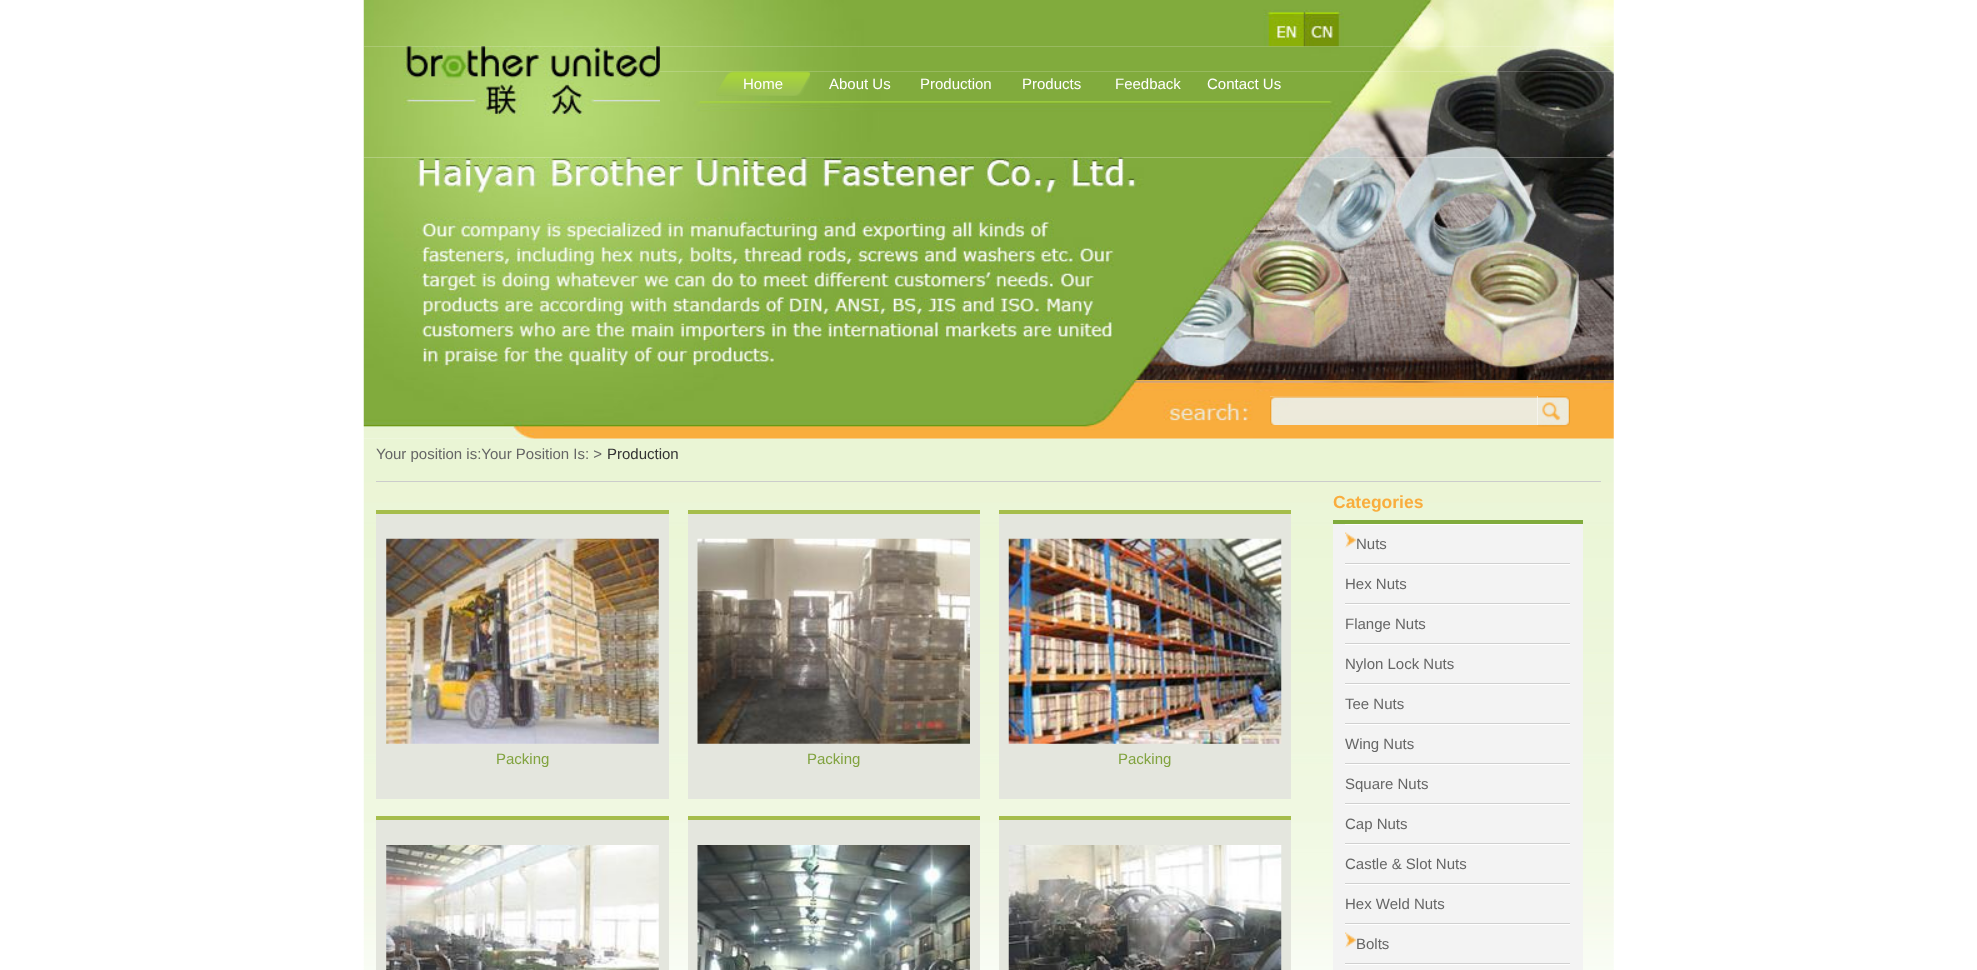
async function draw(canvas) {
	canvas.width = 1977;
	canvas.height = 970;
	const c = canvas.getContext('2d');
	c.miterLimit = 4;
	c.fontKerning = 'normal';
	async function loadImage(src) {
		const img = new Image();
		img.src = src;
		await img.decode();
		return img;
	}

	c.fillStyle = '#fff';
	c.fillRect(0, 0, 1977, 970);
	c.drawImage(await loadImage('img4.png'), 660, 71, 954, 87);
	c.drawImage(await loadImage('img5.png'), 716, 71, 94, 25);
	c.drawImage(await loadImage('img3.png'), 660, 46, 954, 26);
	c.drawImage(await loadImage('img1.png'), 363, 0, 1251, 47);
	c.drawImage(await loadImage('img2.png'), 363, 46, 297, 112);
	c.font = '15px Liberation Sans';
	for (const [text, x, y] of [
		['Home', 743, 89],
		['About Us', 829, 89],
		['Production', 920, 89],
		['Products', 1022, 89],
		['Feedback', 1115, 89],
		['Contact Us', 1207, 89],
	]) {
		c.fillText(text, x, y);
	}
	c.drawImage(await loadImage('img6.png'), 363, 157, 1251, 223);
	c.drawImage(await loadImage('img7.png'), 363, 380, 1251, 59);
	c.drawImage(await loadImage('img9.png'), 1537, 396, 33, 31);
	c.fillRect(1270, 396, 268, 29);
	c.drawImage(await loadImage('img8.png'), 1270, 396, 268, 29);
	c.drawImage(await loadImage('img10.png'), 363, 438, 1251, 532);
	c.fillStyle = '#ccc';
	c.fillRect(376, 481, 1225, 1);
	c.fillStyle = '#666';
	c.fillText('Your position is:Your Position Is: >', 376, 459);
	c.fillStyle = '#333';
	c.fillText('Production', 607, 459);
	c.fillStyle = '#e4e6de';
	c.fillRect(376, 514, 293, 285);
	c.fillStyle = '#a5bd4b';
	c.fillRect(376, 510, 293, 4);
	c.drawImage(await loadImage('img11.png'), 386, 538, 273, 206);
	c.fillStyle = '#81a33f';
	c.fillText('Packing', 496, 764);
	c.fillStyle = '#e4e6de';
	c.fillRect(688, 514, 292, 285);
	c.fillStyle = '#a5bd4b';
	c.fillRect(688, 510, 292, 4);
	c.drawImage(await loadImage('img12.png'), 697, 538, 273, 206);
	c.fillStyle = '#81a33f';
	c.fillText('Packing', 807, 764);
	c.fillStyle = '#e4e6de';
	c.fillRect(999, 514, 292, 285);
	c.fillStyle = '#a5bd4b';
	c.fillRect(999, 510, 292, 4);
	c.drawImage(await loadImage('img13.png'), 1008, 538, 274, 206);
	c.fillStyle = '#81a33f';
	c.fillText('Packing', 1118, 764);
	c.fillStyle = '#e4e6de';
	c.fillRect(376, 820, 293, 150);
	c.fillStyle = '#a5bd4b';
	c.fillRect(376, 816, 293, 4);
	c.drawImage(await loadImage('img14.png'), 386, 845, 273, 125);
	c.fillStyle = '#e4e6de';
	c.fillRect(688, 820, 292, 150);
	c.fillStyle = '#a5bd4b';
	c.fillRect(688, 816, 292, 4);
	c.drawImage(await loadImage('img15.png'), 697, 845, 273, 125);
	c.fillStyle = '#e4e6de';
	c.fillRect(999, 820, 292, 150);
	c.fillStyle = '#a5bd4b';
	c.fillRect(999, 816, 292, 4);
	c.drawImage(await loadImage('img16.png'), 1008, 845, 274, 125);
	c.fillStyle = '#80ab3c';
	c.fillRect(1333, 520, 250, 4);
	c.font = 'bold 17.5px Liberation Sans';
	c.fillStyle = '#f9ad3d';
	c.fillText('Categories', 1333, 508);
	for (const [x, y, w, h, color] of [
		[1333, 524, 250, 446, '#f3f3f3'],
		[1345, 524, 225, 1, '#fff'],
		[1345, 563, 225, 1, '#d0d0d0'],
	]) {
		c.fillStyle = color;
		c.fillRect(x, y, w, h);
	}
	c.drawImage(await loadImage('img17.png'), 1345, 532, 12, 16);
	c.font = '15px Liberation Sans';
	c.fillStyle = '#666';
	c.fillText('Nuts', 1356, 549);
	c.fillStyle = '#fff';
	c.fillRect(1345, 564, 225, 1);
	c.fillStyle = '#d0d0d0';
	c.fillRect(1345, 603, 225, 1);
	c.fillStyle = '#666';
	c.fillText('Hex Nuts', 1345, 589);
	c.fillStyle = '#fff';
	c.fillRect(1345, 604, 225, 1);
	c.fillStyle = '#d0d0d0';
	c.fillRect(1345, 643, 225, 1);
	c.fillStyle = '#666';
	c.fillText('Flange Nuts', 1345, 629);
	c.fillStyle = '#fff';
	c.fillRect(1345, 644, 225, 1);
	c.fillStyle = '#d0d0d0';
	c.fillRect(1345, 683, 225, 1);
	c.fillStyle = '#666';
	c.fillText('Nylon Lock Nuts', 1345, 669);
	c.fillStyle = '#fff';
	c.fillRect(1345, 684, 225, 1);
	c.fillStyle = '#d0d0d0';
	c.fillRect(1345, 723, 225, 1);
	c.fillStyle = '#666';
	c.fillText('Tee Nuts', 1345, 709);
	c.fillStyle = '#fff';
	c.fillRect(1345, 724, 225, 1);
	c.fillStyle = '#d0d0d0';
	c.fillRect(1345, 763, 225, 1);
	c.fillStyle = '#666';
	c.fillText('Wing Nuts', 1345, 749);
	c.fillStyle = '#fff';
	c.fillRect(1345, 764, 225, 1);
	c.fillStyle = '#d0d0d0';
	c.fillRect(1345, 803, 225, 1);
	c.fillStyle = '#666';
	c.fillText('Square Nuts', 1345, 789);
	c.fillStyle = '#fff';
	c.fillRect(1345, 804, 225, 1);
	c.fillStyle = '#d0d0d0';
	c.fillRect(1345, 843, 225, 1);
	c.fillStyle = '#666';
	c.fillText('Cap Nuts', 1345, 829);
	c.fillStyle = '#fff';
	c.fillRect(1345, 844, 225, 1);
	c.fillStyle = '#d0d0d0';
	c.fillRect(1345, 883, 225, 1);
	c.fillStyle = '#666';
	c.fillText('Castle & Slot Nuts', 1345, 869);
	c.fillStyle = '#fff';
	c.fillRect(1345, 884, 225, 1);
	c.fillStyle = '#d0d0d0';
	c.fillRect(1345, 923, 225, 1);
	c.fillStyle = '#666';
	c.fillText('Hex Weld Nuts', 1345, 909);
	c.fillStyle = '#fff';
	c.fillRect(1345, 924, 225, 1);
	c.fillStyle = '#d0d0d0';
	c.fillRect(1345, 963, 225, 1);
	c.drawImage(await loadImage('img17.png'), 1345, 932, 12, 16);
	c.fillStyle = '#666';
	c.fillText('Bolts', 1356, 949);
	c.fillStyle = '#fff';
	c.fillRect(1345, 964, 225, 1);
}

draw(document.querySelector('canvas'));
